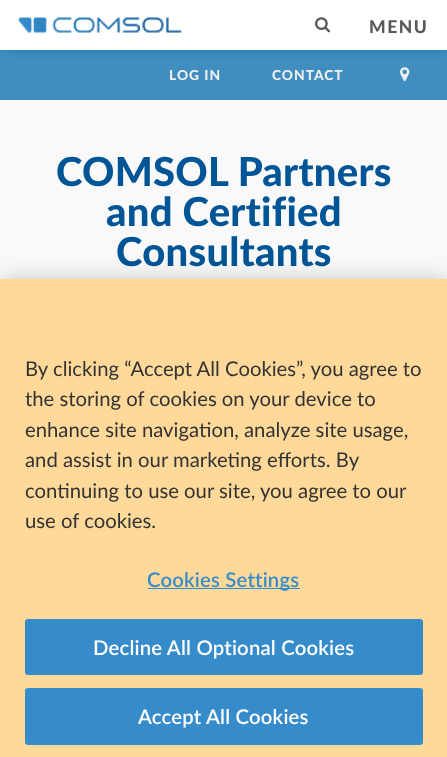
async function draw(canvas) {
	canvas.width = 447;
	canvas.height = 757;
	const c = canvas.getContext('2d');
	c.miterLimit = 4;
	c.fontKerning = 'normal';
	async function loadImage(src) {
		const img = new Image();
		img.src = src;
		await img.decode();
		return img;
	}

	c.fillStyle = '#fff';
	c.fillRect(0, 0, 447, 757);
	c.fillStyle = '#408ebf';
	c.fillRect(0, 50, 447, 50);
	c.save();
	c.beginPath();
	c.rect(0, 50, 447, 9);
	c.clip();
	c.fillStyle = '#005596';
	c.filter = 'blur(7px)';
	c.beginPath();
	c.rect(4, -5, 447, 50);
	c.fill();
	c.filter = 'none';
	c.restore();
	c.drawImage(await loadImage('img1.png'), 18, 17, 164, 16);
	c.drawImage(await loadImage('img2.png'), 315, 17, 16, 16);
	c.letterSpacing = '1.5px';
	c.font = '900 17.5px Lato';
	c.fillStyle = '#595959';
	c.fillText('MENU', 369, 33);
	c.letterSpacing = '1px';
	c.font = '900 13.75px Lato';
	c.fillStyle = '#eee';
	c.fillText('LOG IN', 169, 80);
	c.fillText('CONTACT', 272, 80);
	c.drawImage(await loadImage('img3.png'), 400, 67, 10, 15);
	c.fillStyle = '#f9f9f9';
	c.fillRect(0, 100, 447, 179);
	c.letterSpacing = '0.25px';
	c.font = '900 40px Lato';
	c.fillStyle = '#005596';
	for (const [text, x, y] of [
		['COMSOL Partners', 56, 186],
		['and Certified', 106, 226],
		['Consultants', 116, 266],
	]) {
		c.fillText(text, x, y);
	}
	c.fillStyle = '#00000033';
	c.filter = 'blur(11px)';
	c.beginPath();
	c.rect(0, 279, 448, 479);
	c.fill();
	c.filter = 'none';
	c.fillStyle = '#ffd999';
	c.fillRect(0, 279, 447, 478);
	c.letterSpacing = '0px';
	c.font = '20.3px Lato';
	c.fillStyle = '#333';
	for (const [text, x, y] of [
		['By clicking “Accept All Cookies”, you agree to', 25, 376],
		['the storing of cookies on your device to', 25, 406],
		['enhance site navigation, analyze site usage,', 25, 437],
		['and assist in our marketing efforts. By', 25, 467],
		['continuing to use our site, you agree to our', 25, 498],
		['use of cookies.', 25, 528],
	]) {
		c.fillText(text, x, y);
	}
	c.fillStyle = '#368ccb';
	c.fillRect(148, 588, 152, 1);
	c.letterSpacing = '0.2px';
	c.font = '600 20.3px Lato';
	c.fillText('Cookies Settings', 147, 587);
	c.beginPath();
	c.roundRect(25.5, 619.5, 397, 55, 2);
	c.fill();
	c.strokeStyle = '#368ccb';
	c.stroke();
	c.fillStyle = '#fff';
	c.fillText('Decline All Optional Cookies', 93, 655);
	c.fillStyle = '#368ccb';
	c.beginPath();
	c.roundRect(25.5, 688.5, 397, 56, 2);
	c.fill();
	c.stroke();
	c.fillStyle = '#fff';
	c.fillText('Accept All Cookies', 138, 724);
}

draw(document.querySelector('canvas'));
